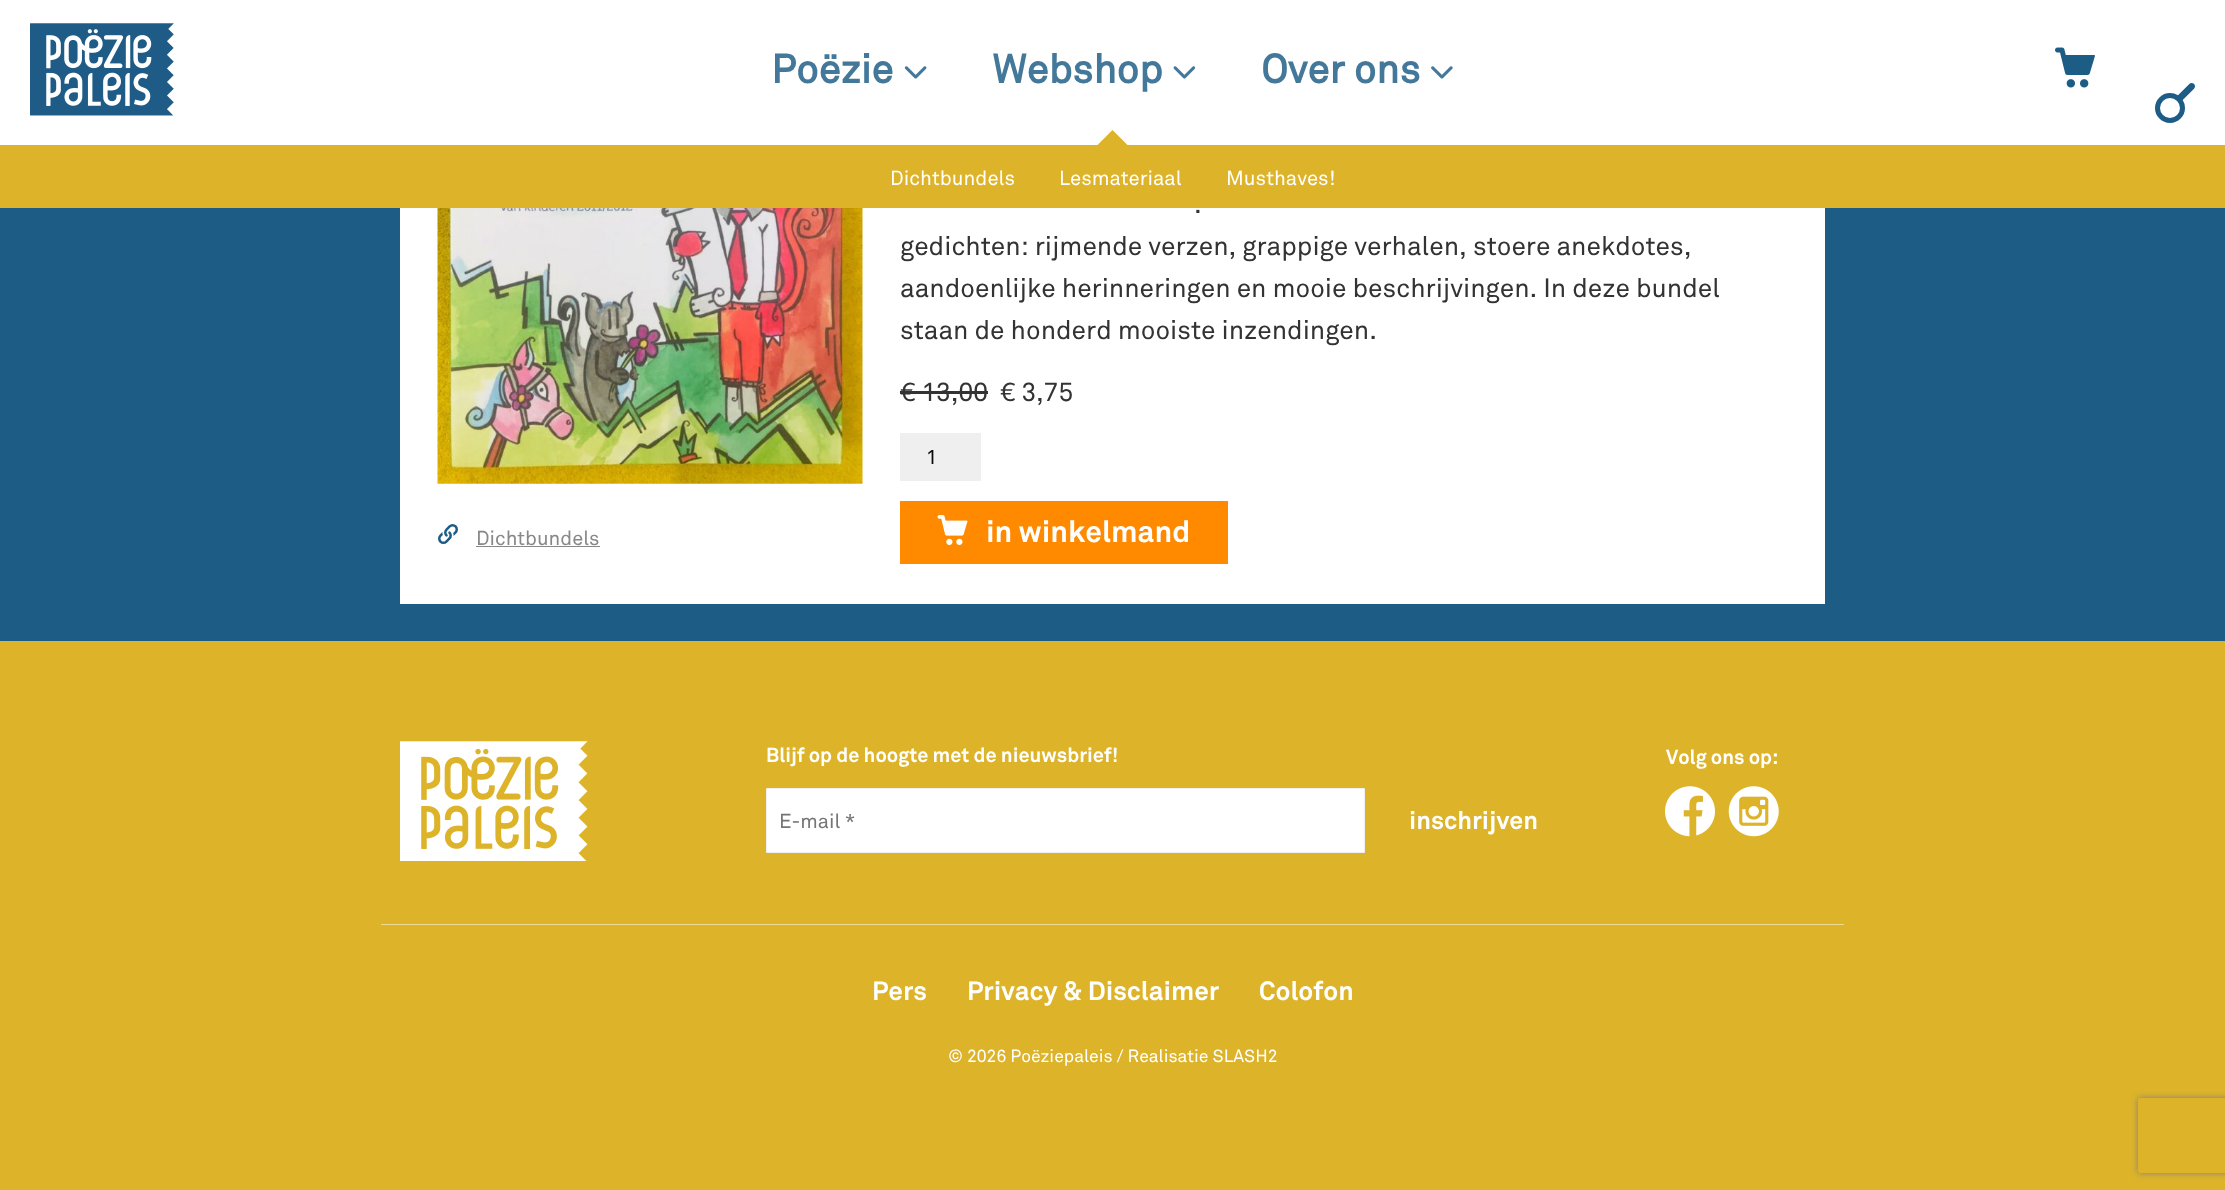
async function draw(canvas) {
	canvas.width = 2225;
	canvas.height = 1190;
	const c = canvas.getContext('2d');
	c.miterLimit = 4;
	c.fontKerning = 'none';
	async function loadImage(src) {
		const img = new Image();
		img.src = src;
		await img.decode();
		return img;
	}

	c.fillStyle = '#1d5c85';
	c.fillRect(0, 0, 2225, 1190);
	c.fillStyle = '#fff';
	c.fillRect(0, 0, 2225, 145);
	c.drawImage(await loadImage('img1.png'), 30, 23, 144, 93);
	c.font = 'bold 40px "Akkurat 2"';
	c.fillStyle = '#43789a';
	c.fillText('Poëzie', 771, 83);
	c.drawImage(await loadImage('img2.png'), 904, 66, 23, 13);
	c.fillText('Webshop', 992, 83);
	c.drawImage(await loadImage('img3.png'), 1173, 66, 23, 13);
	c.fillText('Over ons', 1261, 83);
	c.drawImage(await loadImage('img4.png'), 1431, 66, 22, 13);
	c.drawImage(await loadImage('img5.png'), 2055, 47, 40, 41);
	c.font = '40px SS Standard';
	c.fillStyle = '#1d5c85';
	c.save();
	c.translate(2195, 83);
	c.rotate(180 * Math.PI / 180);
	c.fillText('🔎', 0, 0);
	c.restore();
	c.fillStyle = '#ddb329';
	c.fillRect(0, 145, 2225, 63);
	c.beginPath();
	c.moveTo(1127.5, 145);
	c.lineTo(1097.5, 145);
	c.lineTo(1112.5, 130);
	c.closePath();
	c.fill();
	c.font = '20.25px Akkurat';
	c.fillStyle = '#fff';
	for (const [text, x, y] of [
		['Dichtbundels', 890, 185],
		['Lesmateriaal', 1059, 185],
		['Musthaves!', 1226, 185],
	]) {
		c.fillText(text, x, y);
	}
	c.fillRect(400, 208, 1425, 396);
	c.drawImage(await loadImage('img6.png'), 437, 208, 426, 276);
	c.font = '20px SS Standard';
	c.fillStyle = '#1d5c85';
	c.fillText('🔗', 438, 544);
	c.font = '20px Akkurat';
	c.fillStyle = '#888';
	c.fillText('Dichtbundels', 476, 545);
	c.fillRect(476, 546, 124, 1);
	c.font = '26.25px Akkurat';
	c.fillStyle = '#333';
	for (const [text, x, y] of [
		['.', 1194, 213],
		['gedichten: rijmende verzen, grappige verhalen,', 900, 255],
		['stoere anekdotes,', 1473, 255],
		['aandoenlijke herinneringen en mooie beschrijvingen. In deze bundel', 900, 297],
		['staan de honderd mooiste inzendingen.', 900, 339],
		['€ 13,00', 900, 401],
	]) {
		c.fillText(text, x, y);
	}
	c.fillRect(900, 391, 88, 3);
	c.fillText('€ 3,75', 1000, 401);
	c.fillStyle = '#efefef';
	c.fillRect(900, 433, 81, 48);
	c.font = '20px Akkurat';
	c.fillStyle = '#0a0a0a';
	c.fillText('1', 926, 464);
	c.fillStyle = '#ff8a00';
	c.fillRect(900, 501, 328, 63);
	c.drawImage(await loadImage('img7.png'), 937, 515, 31, 30);
	c.font = 'bold 30px Akkurat';
	c.fillStyle = '#fff';
	c.fillText('in winkelmand', 986, 542);
	c.fillStyle = '#ddb329';
	c.fillRect(0, 641, 2225, 549);
	c.fillStyle = '#eed994';
	c.fillRect(381, 924, 1463, 1);
	c.drawImage(await loadImage('img8.png'), 400, 741, 188, 120);
	c.font = 'bold 20px Akkurat';
	c.fillStyle = '#fff';
	c.fillText('Blijf op de hoogte met de nieuwsbrief!', 766, 762);
	c.beginPath();
	c.rect(766.5, 788.5, 598, 64);
	c.fill();
	c.strokeStyle = '#efefef';
	c.stroke();
	c.font = '20px Akkurat';
	c.fillStyle = '#757575';
	c.fillText('E-mail *', 779, 828);
	c.font = 'bold 25px Akkurat';
	c.fillStyle = '#fff';
	c.fillText('inschrijven', 1409, 829);
	c.font = 'bold 20px Akkurat';
	c.fillText('Volg ons op:', 1666, 764);
	c.drawImage(await loadImage('img9.png'), 1665, 786, 50, 51);
	c.drawImage(await loadImage('img10.png'), 1728, 786, 51, 51);
	c.font = 'bold 26.25px Akkurat';
	for (const [text, x, y] of [
		['Pers', 872, 1000],
		['Privacy & Disclaimer', 967, 1000],
		['Colofon', 1259, 1000],
	]) {
		c.fillText(text, x, y);
	}
	c.font = '17.5px Akkurat';
	c.fillText('© 2026 Poëziepaleis / Realisatie SLASH2', 948, 1062);
	c.save();
	c.beginPath();
	c.moveTo(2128, 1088);
	c.lineTo(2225, 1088);
	c.lineTo(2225, 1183);
	c.lineTo(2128, 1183);
	c.closePath();
	c.moveTo(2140.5, 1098);
	c.lineTo(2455.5, 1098);
	c.bezierCurveTo(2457, 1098, 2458, 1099, 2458, 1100.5);
	c.lineTo(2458, 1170.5);
	c.bezierCurveTo(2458, 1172, 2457, 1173, 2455.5, 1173);
	c.lineTo(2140.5, 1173);
	c.bezierCurveTo(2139, 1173, 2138, 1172, 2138, 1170.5);
	c.lineTo(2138, 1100.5);
	c.bezierCurveTo(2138, 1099, 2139, 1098, 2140.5, 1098);
	c.closePath();
	c.clip('evenodd');
	c.fillStyle = '#808080';
	c.filter = 'blur(3px)';
	c.beginPath();
	c.roundRect(2138, 1098, 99, 75, 2.5);
	c.fill();
	c.filter = 'none';
	c.restore();
}

draw(document.querySelector('canvas'));
